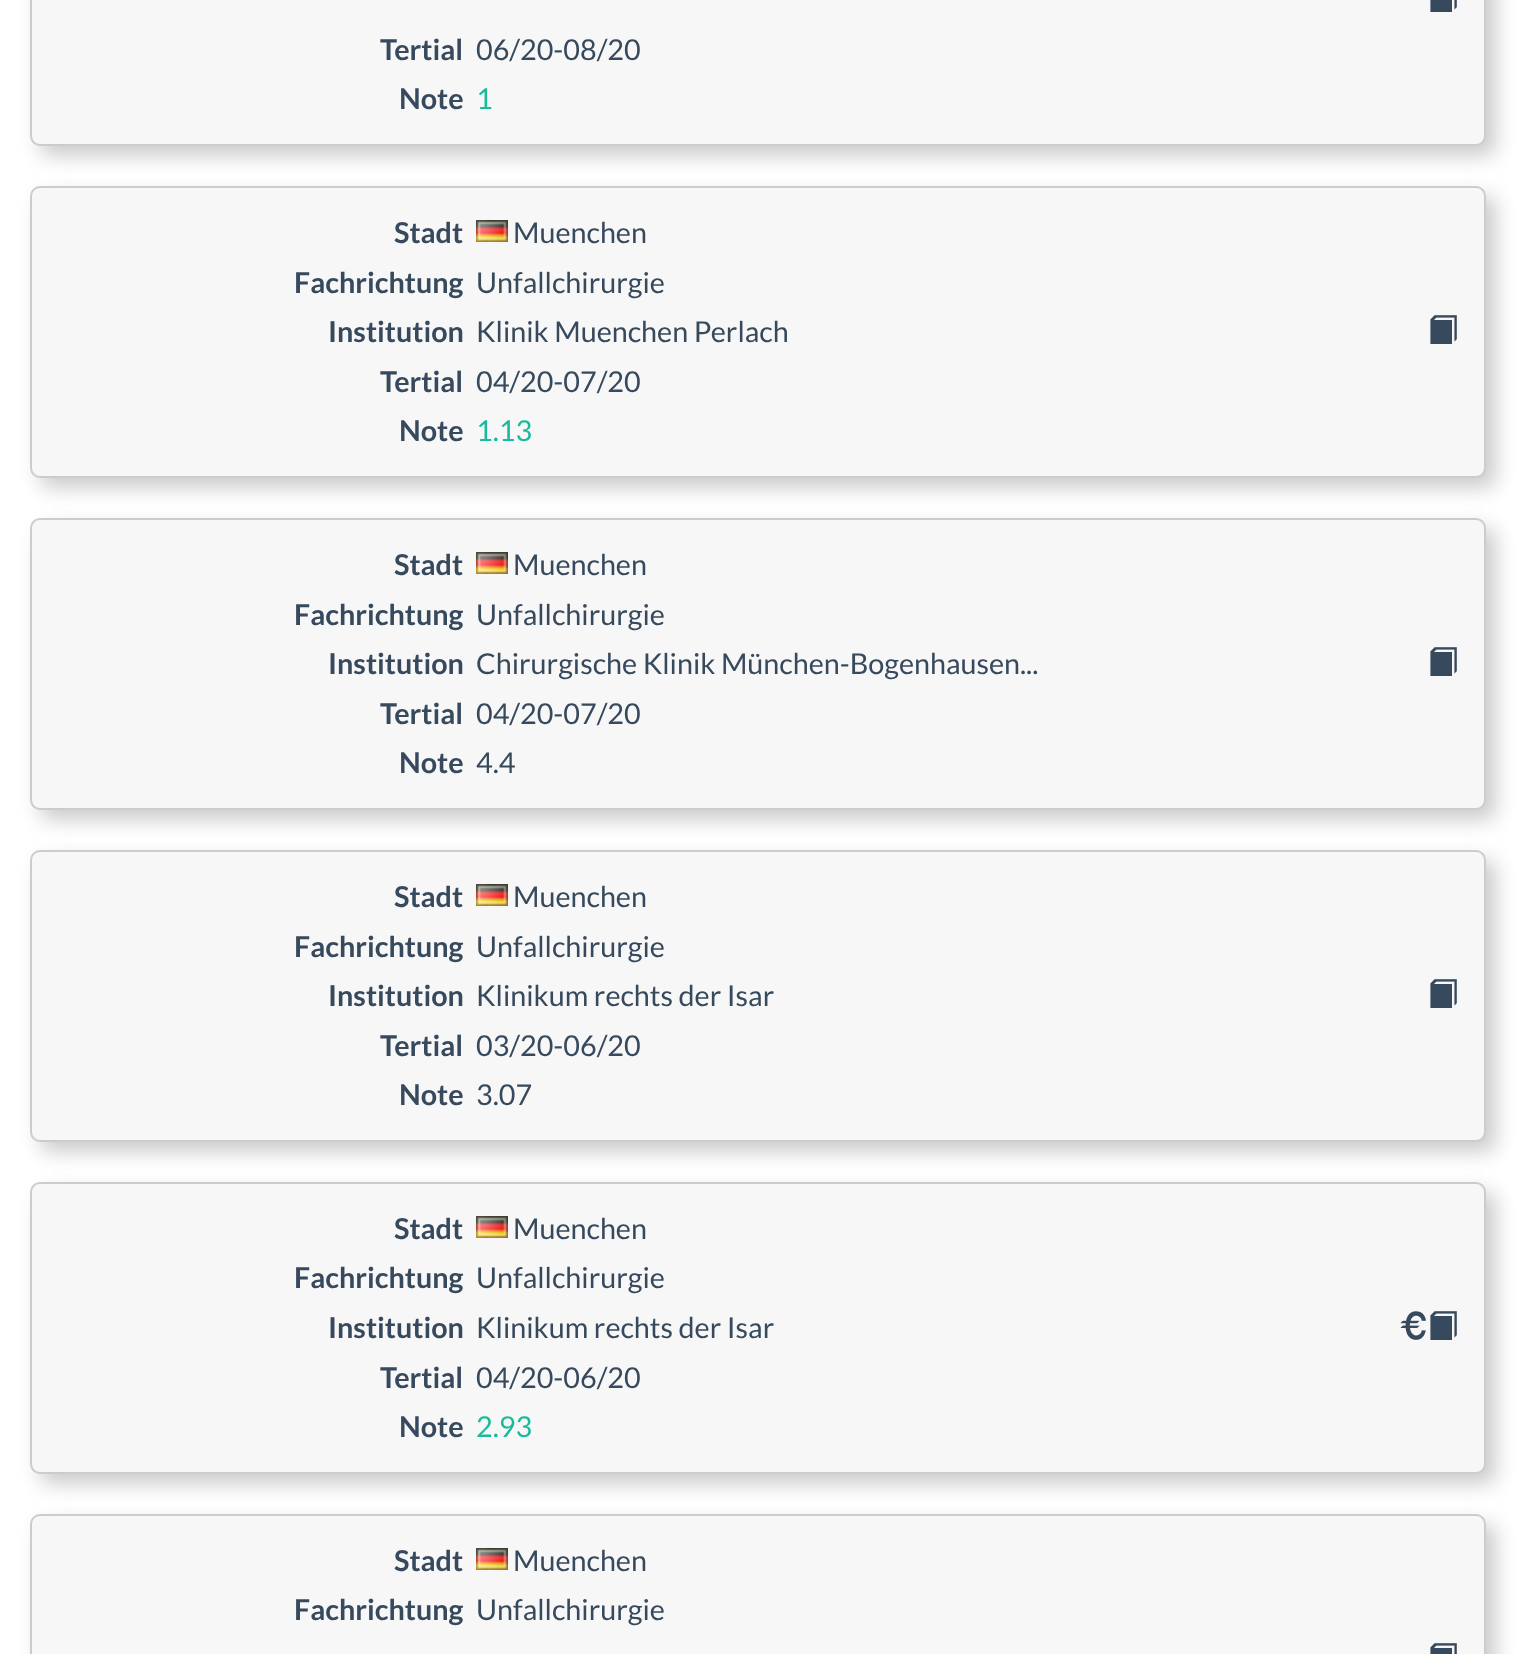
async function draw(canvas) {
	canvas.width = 1515;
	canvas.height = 1654;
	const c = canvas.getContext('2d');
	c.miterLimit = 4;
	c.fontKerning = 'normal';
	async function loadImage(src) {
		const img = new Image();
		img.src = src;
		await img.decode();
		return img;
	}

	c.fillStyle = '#fff';
	c.fillRect(0, 0, 1515, 1654);
	c.fillStyle = '#ccc';
	c.filter = 'blur(10px)';
	c.beginPath();
	c.roundRect(40, -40, 1456, 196, 10);
	c.fill();
	c.filter = 'none';
	c.fillStyle = '#f7f7f7';
	c.beginPath();
	c.roundRect(31, -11, 1454, 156, 9);
	c.fill();
	c.strokeStyle = '#ccc';
	c.lineWidth = 2;
	c.stroke();
	c.drawImage(await loadImage('img1.png'), 1430, 0, 27, 12);
	c.font = 'bold 28.75px Lato';
	c.fillStyle = '#37495d';
	c.fillText('Tertial', 380, 60);
	c.font = '28.75px Lato';
	c.fillText('06/20-08/20', 476, 60);
	c.font = 'bold 28.75px Lato';
	c.fillText('Note', 399, 109);
	c.font = '28.75px Lato';
	c.fillStyle = '#18bc9c';
	c.fillText('1', 476, 109);
	c.fillStyle = '#ccc';
	c.filter = 'blur(10px)';
	c.beginPath();
	c.roundRect(40, 196, 1456, 292, 10);
	c.fill();
	c.filter = 'none';
	c.fillStyle = '#f7f7f7';
	c.beginPath();
	c.roundRect(31, 187, 1454, 290, 9);
	c.fill();
	c.stroke();
	c.font = 'bold 28.75px Lato';
	c.fillStyle = '#37495d';
	c.fillText('Stadt', 394, 243);
	c.drawImage(await loadImage('img2.png'), 476, 220, 32, 22);
	c.font = '28.75px Lato';
	c.fillText('Muenchen', 513, 243);
	c.font = 'bold 28.75px Lato';
	c.fillText('Fachrichtung', 294, 293);
	c.font = '28.75px Lato';
	c.fillText('Unfallchirurgie', 476, 293);
	c.font = 'bold 28.75px Lato';
	c.fillText('Institution', 328, 342);
	c.font = '28.75px Lato';
	c.fillText('Klinik Muenchen Perlach', 476, 342);
	c.drawImage(await loadImage('img3.png'), 1430, 315, 27, 29);
	c.font = 'bold 28.75px Lato';
	c.fillText('Tertial', 380, 392);
	c.font = '28.75px Lato';
	c.fillText('04/20-07/20', 476, 392);
	c.font = 'bold 28.75px Lato';
	c.fillText('Note', 399, 441);
	c.font = '28.75px Lato';
	c.fillStyle = '#18bc9c';
	c.fillText('1.13', 476, 441);
	c.fillStyle = '#ccc';
	c.filter = 'blur(10px)';
	c.beginPath();
	c.roundRect(40, 528, 1456, 292, 10);
	c.fill();
	c.filter = 'none';
	c.fillStyle = '#f7f7f7';
	c.beginPath();
	c.roundRect(31, 519, 1454, 290, 9);
	c.fill();
	c.stroke();
	c.font = 'bold 28.75px Lato';
	c.fillStyle = '#37495d';
	c.fillText('Stadt', 394, 575);
	c.drawImage(await loadImage('img2.png'), 476, 552, 32, 22);
	c.font = '28.75px Lato';
	c.fillText('Muenchen', 513, 575);
	c.font = 'bold 28.75px Lato';
	c.fillText('Fachrichtung', 294, 625);
	c.font = '28.75px Lato';
	c.fillText('Unfallchirurgie', 476, 625);
	c.font = 'bold 28.75px Lato';
	c.fillText('Institution', 328, 674);
	c.font = '28.75px Lato';
	c.fillText('Chirurgische Klinik München-Bogenhausen...', 476, 674);
	c.drawImage(await loadImage('img3.png'), 1430, 647, 27, 29);
	c.font = 'bold 28.75px Lato';
	c.fillText('Tertial', 380, 724);
	c.font = '28.75px Lato';
	c.fillText('04/20-07/20', 476, 724);
	c.font = 'bold 28.75px Lato';
	c.fillText('Note', 399, 773);
	c.font = '28.75px Lato';
	c.fillText('4.4', 476, 773);
	c.fillStyle = '#ccc';
	c.filter = 'blur(10px)';
	c.beginPath();
	c.roundRect(40, 860, 1456, 292, 10);
	c.fill();
	c.filter = 'none';
	c.fillStyle = '#f7f7f7';
	c.beginPath();
	c.roundRect(31, 851, 1454, 290, 9);
	c.fill();
	c.stroke();
	c.font = 'bold 28.75px Lato';
	c.fillStyle = '#37495d';
	c.fillText('Stadt', 394, 907);
	c.drawImage(await loadImage('img2.png'), 476, 884, 32, 22);
	c.font = '28.75px Lato';
	c.fillText('Muenchen', 513, 907);
	c.font = 'bold 28.75px Lato';
	c.fillText('Fachrichtung', 294, 957);
	c.font = '28.75px Lato';
	c.fillText('Unfallchirurgie', 476, 957);
	c.font = 'bold 28.75px Lato';
	c.fillText('Institution', 328, 1006);
	c.font = '28.75px Lato';
	c.fillText('Klinikum rechts der Isar', 476, 1006);
	c.drawImage(await loadImage('img3.png'), 1430, 979, 27, 29);
	c.font = 'bold 28.75px Lato';
	c.fillText('Tertial', 380, 1056);
	c.font = '28.75px Lato';
	c.fillText('03/20-06/20', 476, 1056);
	c.font = 'bold 28.75px Lato';
	c.fillText('Note', 399, 1105);
	c.font = '28.75px Lato';
	c.fillText('3.07', 476, 1105);
	c.fillStyle = '#ccc';
	c.filter = 'blur(10px)';
	c.beginPath();
	c.roundRect(40, 1192, 1456, 292, 10);
	c.fill();
	c.filter = 'none';
	c.fillStyle = '#f7f7f7';
	c.beginPath();
	c.roundRect(31, 1183, 1454, 290, 9);
	c.fill();
	c.stroke();
	c.font = 'bold 28.75px Lato';
	c.fillStyle = '#37495d';
	c.fillText('Stadt', 394, 1239);
	c.drawImage(await loadImage('img2.png'), 476, 1216, 32, 22);
	c.font = '28.75px Lato';
	c.fillText('Muenchen', 513, 1239);
	c.font = 'bold 28.75px Lato';
	c.fillText('Fachrichtung', 294, 1288);
	c.font = '28.75px Lato';
	c.fillText('Unfallchirurgie', 476, 1288);
	c.font = 'bold 28.75px Lato';
	c.fillText('Institution', 328, 1338);
	c.font = '28.75px Lato';
	c.fillText('Klinikum rechts der Isar', 476, 1338);
	c.drawImage(await loadImage('img4.png'), 1400, 1311, 26, 29);
	c.drawImage(await loadImage('img3.png'), 1430, 1311, 27, 29);
	c.font = 'bold 28.75px Lato';
	c.fillText('Tertial', 380, 1388);
	c.font = '28.75px Lato';
	c.fillText('04/20-06/20', 476, 1388);
	c.font = 'bold 28.75px Lato';
	c.fillText('Note', 399, 1437);
	c.font = '28.75px Lato';
	c.fillStyle = '#18bc9c';
	c.fillText('2.93', 476, 1437);
	c.fillStyle = '#ccc';
	c.filter = 'blur(10px)';
	c.beginPath();
	c.roundRect(40, 1524, 1456, 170, 10);
	c.fill();
	c.filter = 'none';
	c.fillStyle = '#f7f7f7';
	c.beginPath();
	c.roundRect(31, 1515, 1454, 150, 9);
	c.fill();
	c.stroke();
	c.font = 'bold 28.75px Lato';
	c.fillStyle = '#37495d';
	c.fillText('Stadt', 394, 1571);
	c.drawImage(await loadImage('img2.png'), 476, 1548, 32, 22);
	c.font = '28.75px Lato';
	c.fillText('Muenchen', 513, 1571);
	c.font = 'bold 28.75px Lato';
	c.fillText('Fachrichtung', 294, 1620);
	c.font = '28.75px Lato';
	c.fillText('Unfallchirurgie', 476, 1620);
	c.drawImage(await loadImage('img5.png'), 1430, 1643, 27, 11);
}

draw(document.querySelector('canvas'));
